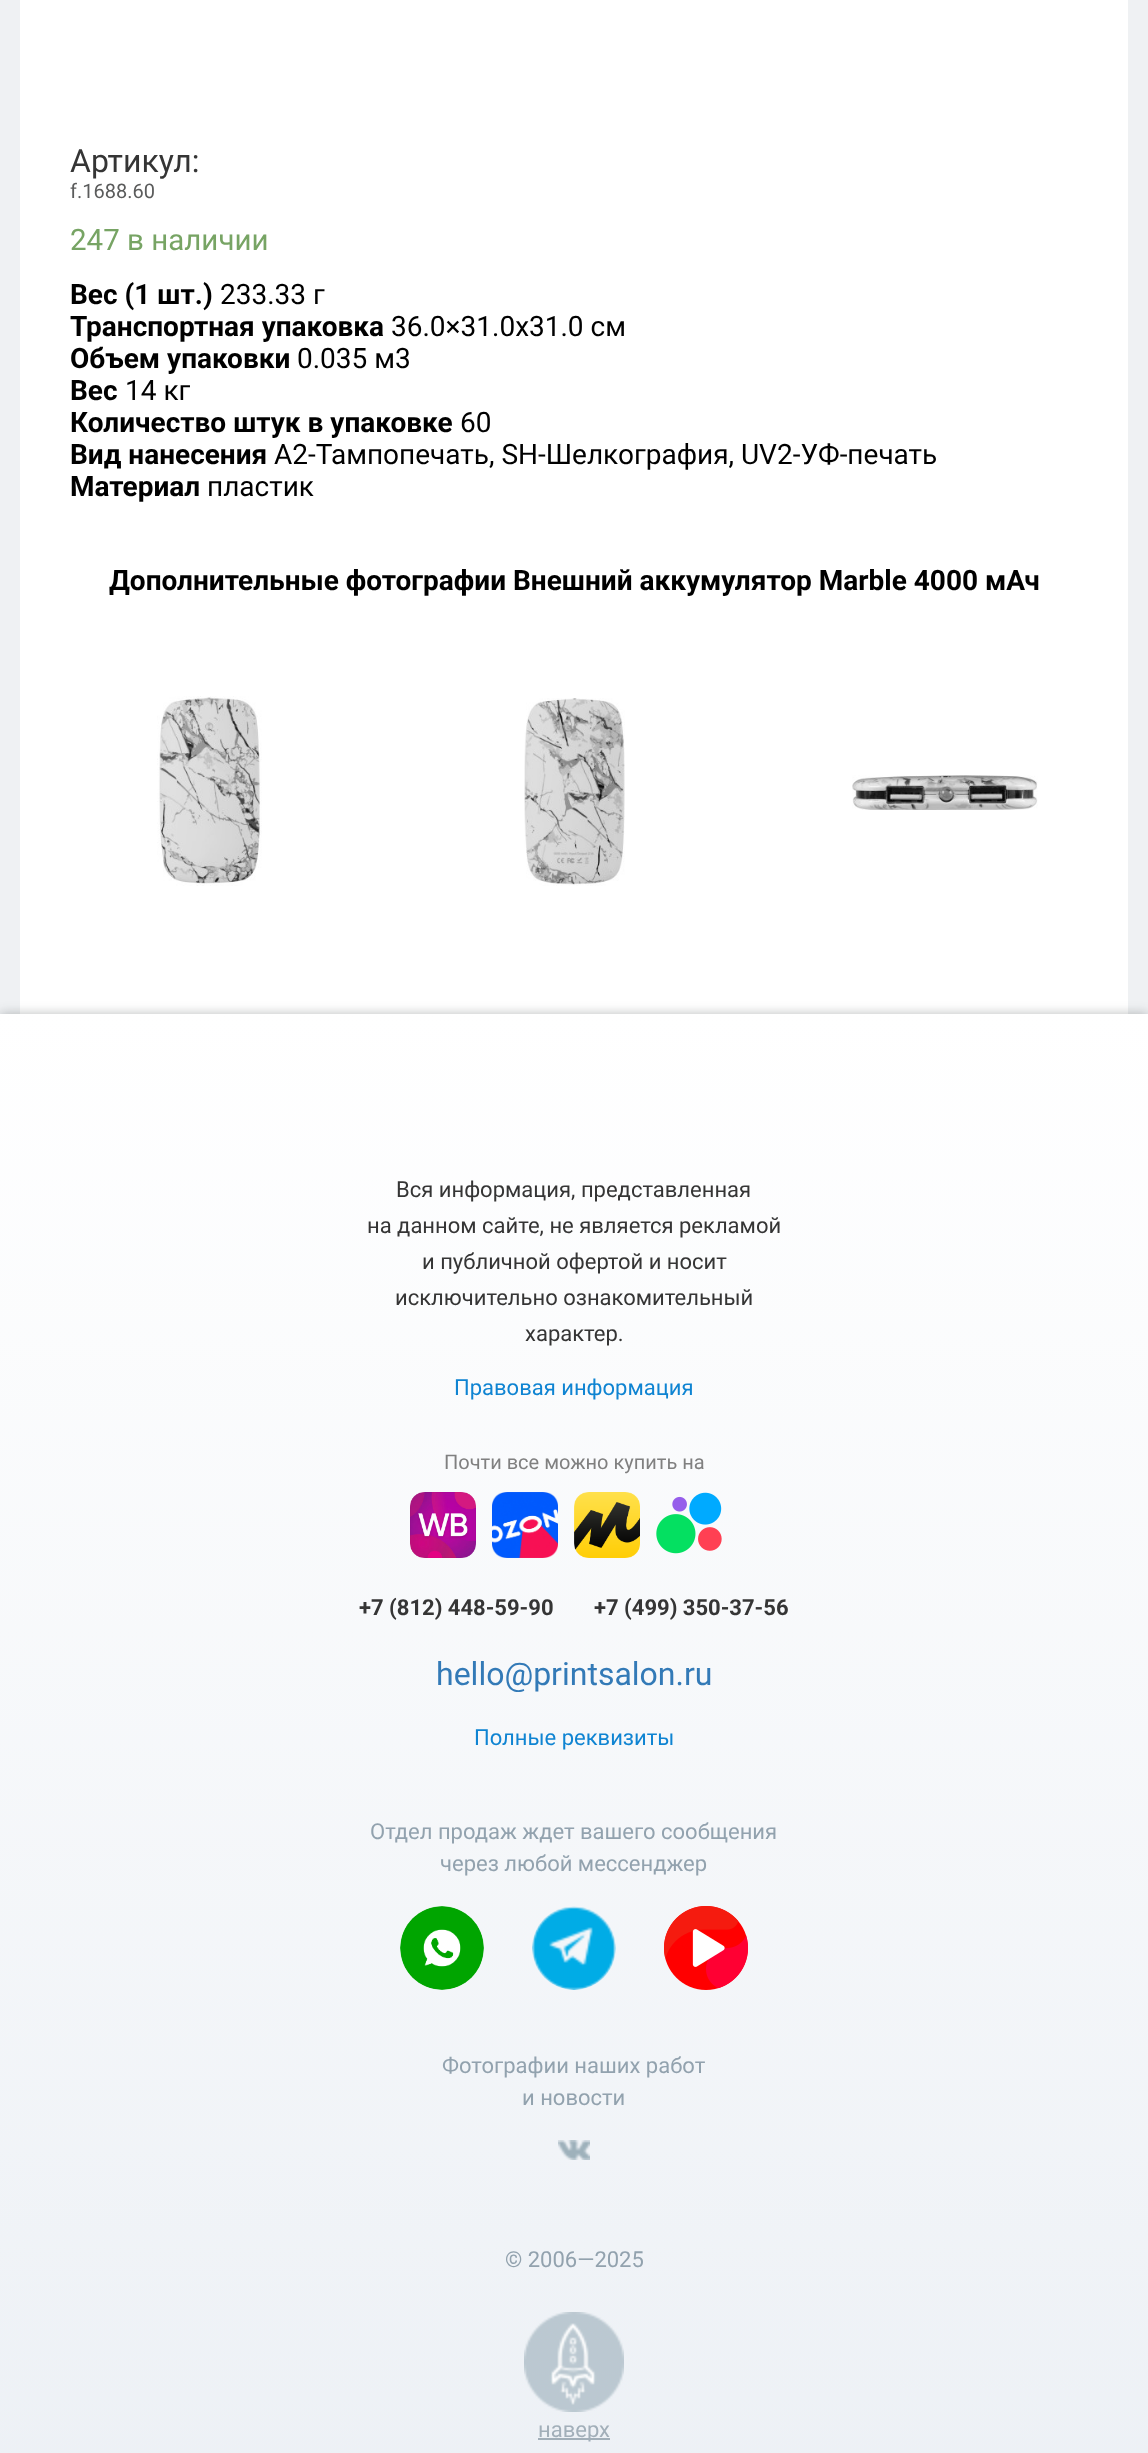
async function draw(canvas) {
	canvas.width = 1148;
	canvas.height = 2453;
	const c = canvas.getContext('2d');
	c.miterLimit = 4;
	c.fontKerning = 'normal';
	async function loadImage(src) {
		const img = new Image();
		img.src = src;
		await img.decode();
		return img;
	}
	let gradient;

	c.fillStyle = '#eff1f3';
	c.fillRect(0, 0, 1148, 2453);
	c.fillStyle = '#fff';
	c.fillRect(20, 0, 1108, 1014);
	c.font = '32px Roboto';
	c.fillStyle = '#353535';
	c.fillText('Артикул:', 70, 172);
	c.font = '20px Roboto';
	c.fillStyle = '#5b5c5c';
	c.fillText('f.1688.60', 70, 198);
	c.font = '29.5px Roboto';
	c.fillStyle = '#77a464';
	c.fillText('247 в наличии', 70, 250);
	c.font = 'bold 28px Roboto';
	c.fillStyle = '#000';
	c.fillText('Вес (1 шт.)', 70, 304);
	c.font = '28px Roboto';
	c.fillText('233.33 г', 220, 304);
	c.font = 'bold 28px Roboto';
	c.fillText('Транспортная упаковка', 70, 336);
	c.font = '28px Roboto';
	c.fillText('36.0×31.0x31.0 см', 391, 336);
	c.font = 'bold 28px Roboto';
	c.fillText('Объем упаковки', 70, 368);
	c.font = '28px Roboto';
	c.fillText('0.035 м3', 297, 368);
	c.font = 'bold 28px Roboto';
	c.fillText('Вес', 70, 400);
	c.font = '28px Roboto';
	c.fillText('14 кг', 125, 400);
	c.font = 'bold 28px Roboto';
	c.fillText('Количество штук в упаковке', 70, 432);
	c.font = '28px Roboto';
	c.fillText('60', 460, 432);
	c.font = 'bold 28px Roboto';
	c.fillText('Вид нанесения', 70, 464);
	c.font = '28px Roboto';
	c.fillText('A2-Тампопечать, SH-Шелкография, UV2-УФ-печать', 274, 464);
	c.font = 'bold 28px Roboto';
	c.fillText('Материал', 70, 496);
	c.font = '28px Roboto';
	c.fillText('пластик', 207, 496);
	c.font = 'bold 28px Roboto';
	c.fillText('Дополнительные фотографии Bнешний аккумулятор Marble 4000 мАч', 109, 590);
	c.drawImage(await loadImage('img1.png'), 157, 696, 105, 190);
	c.drawImage(await loadImage('img2.png'), 524, 698, 101, 188);
	c.drawImage(await loadImage('img3.png'), 852, 775, 186, 35);
	c.fillStyle = '#242a3052';
	c.filter = 'blur(6px)';
	c.beginPath();
	c.rect(0, 1014, 1148, 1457);
	c.fill();
	c.filter = 'none';
	gradient = c.createLinearGradient(574, 1014, 574, 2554);
	gradient.addColorStop(0, '#fff');
	gradient.addColorStop(1, '#ecf0f5');
	c.fillStyle = gradient;
	c.fillRect(0, 1014, 1148, 1439);
	c.font = '22px Roboto';
	c.fillStyle = '#353535';
	for (const [text, x, y] of [
		['Вся информация, представленная', 396, 1197],
		['на данном сайте, не является рекламой', 367, 1233],
		['и публичной офертой и носит', 422, 1269],
		['исключительно ознакомительный', 395, 1305],
		['характер.', 525, 1341],
	]) {
		c.fillText(text, x, y);
	}
	c.fillStyle = '#0f84d2';
	c.fillText('Правовая информация', 454, 1395);
	c.font = '20px Roboto';
	c.fillStyle = '#808080';
	c.fillText('Почти все можно купить на', 444, 1469);
	c.drawImage(await loadImage('img4.png'), 410, 1492, 66, 66);
	c.drawImage(await loadImage('img5.png'), 492, 1492, 66, 66);
	c.drawImage(await loadImage('img6.png'), 574, 1492, 66, 66);
	c.drawImage(await loadImage('img7.png'), 656, 1492, 66, 62);
	c.font = 'bold 22px Roboto';
	c.fillStyle = '#353535';
	c.fillText('+7 (812) 448-59-90', 359, 1615);
	c.fillText('+7 (499) 350-37-56', 594, 1615);
	c.font = '32px Roboto';
	c.fillStyle = '#337ab7';
	c.fillText('hello@printsalon.ru', 436, 1685);
	c.font = '22px Roboto';
	c.fillStyle = '#0f84d2';
	c.fillText('Полные реквизиты', 474, 1745);
	c.fillStyle = '#92a2ae';
	c.fillText('Отдел продаж ждет вашего сообщения', 370, 1839);
	c.fillText('через любой мессенджер', 440, 1871);
	c.drawImage(await loadImage('img8.png'), 400, 1906, 84, 84);
	c.drawImage(await loadImage('img9.png'), 532, 1906, 84, 84);
	c.drawImage(await loadImage('img10.png'), 664, 1906, 84, 84);
	c.fillText('Фотографии наших работ', 442, 2073);
	c.fillText('и новости', 522, 2105);
	c.drawImage(await loadImage('img11.png'), 558, 2140, 32, 20);
	c.fillText('© 2006—2025', 505, 2267);
	c.drawImage(await loadImage('img12.png'), 524, 2312, 100, 100);
	c.fillStyle = '#a2afb9';
	c.fillRect(538, 2438, 72, 2);
	c.fillText('наверх', 538, 2437);
}

draw(document.querySelector('canvas'));
